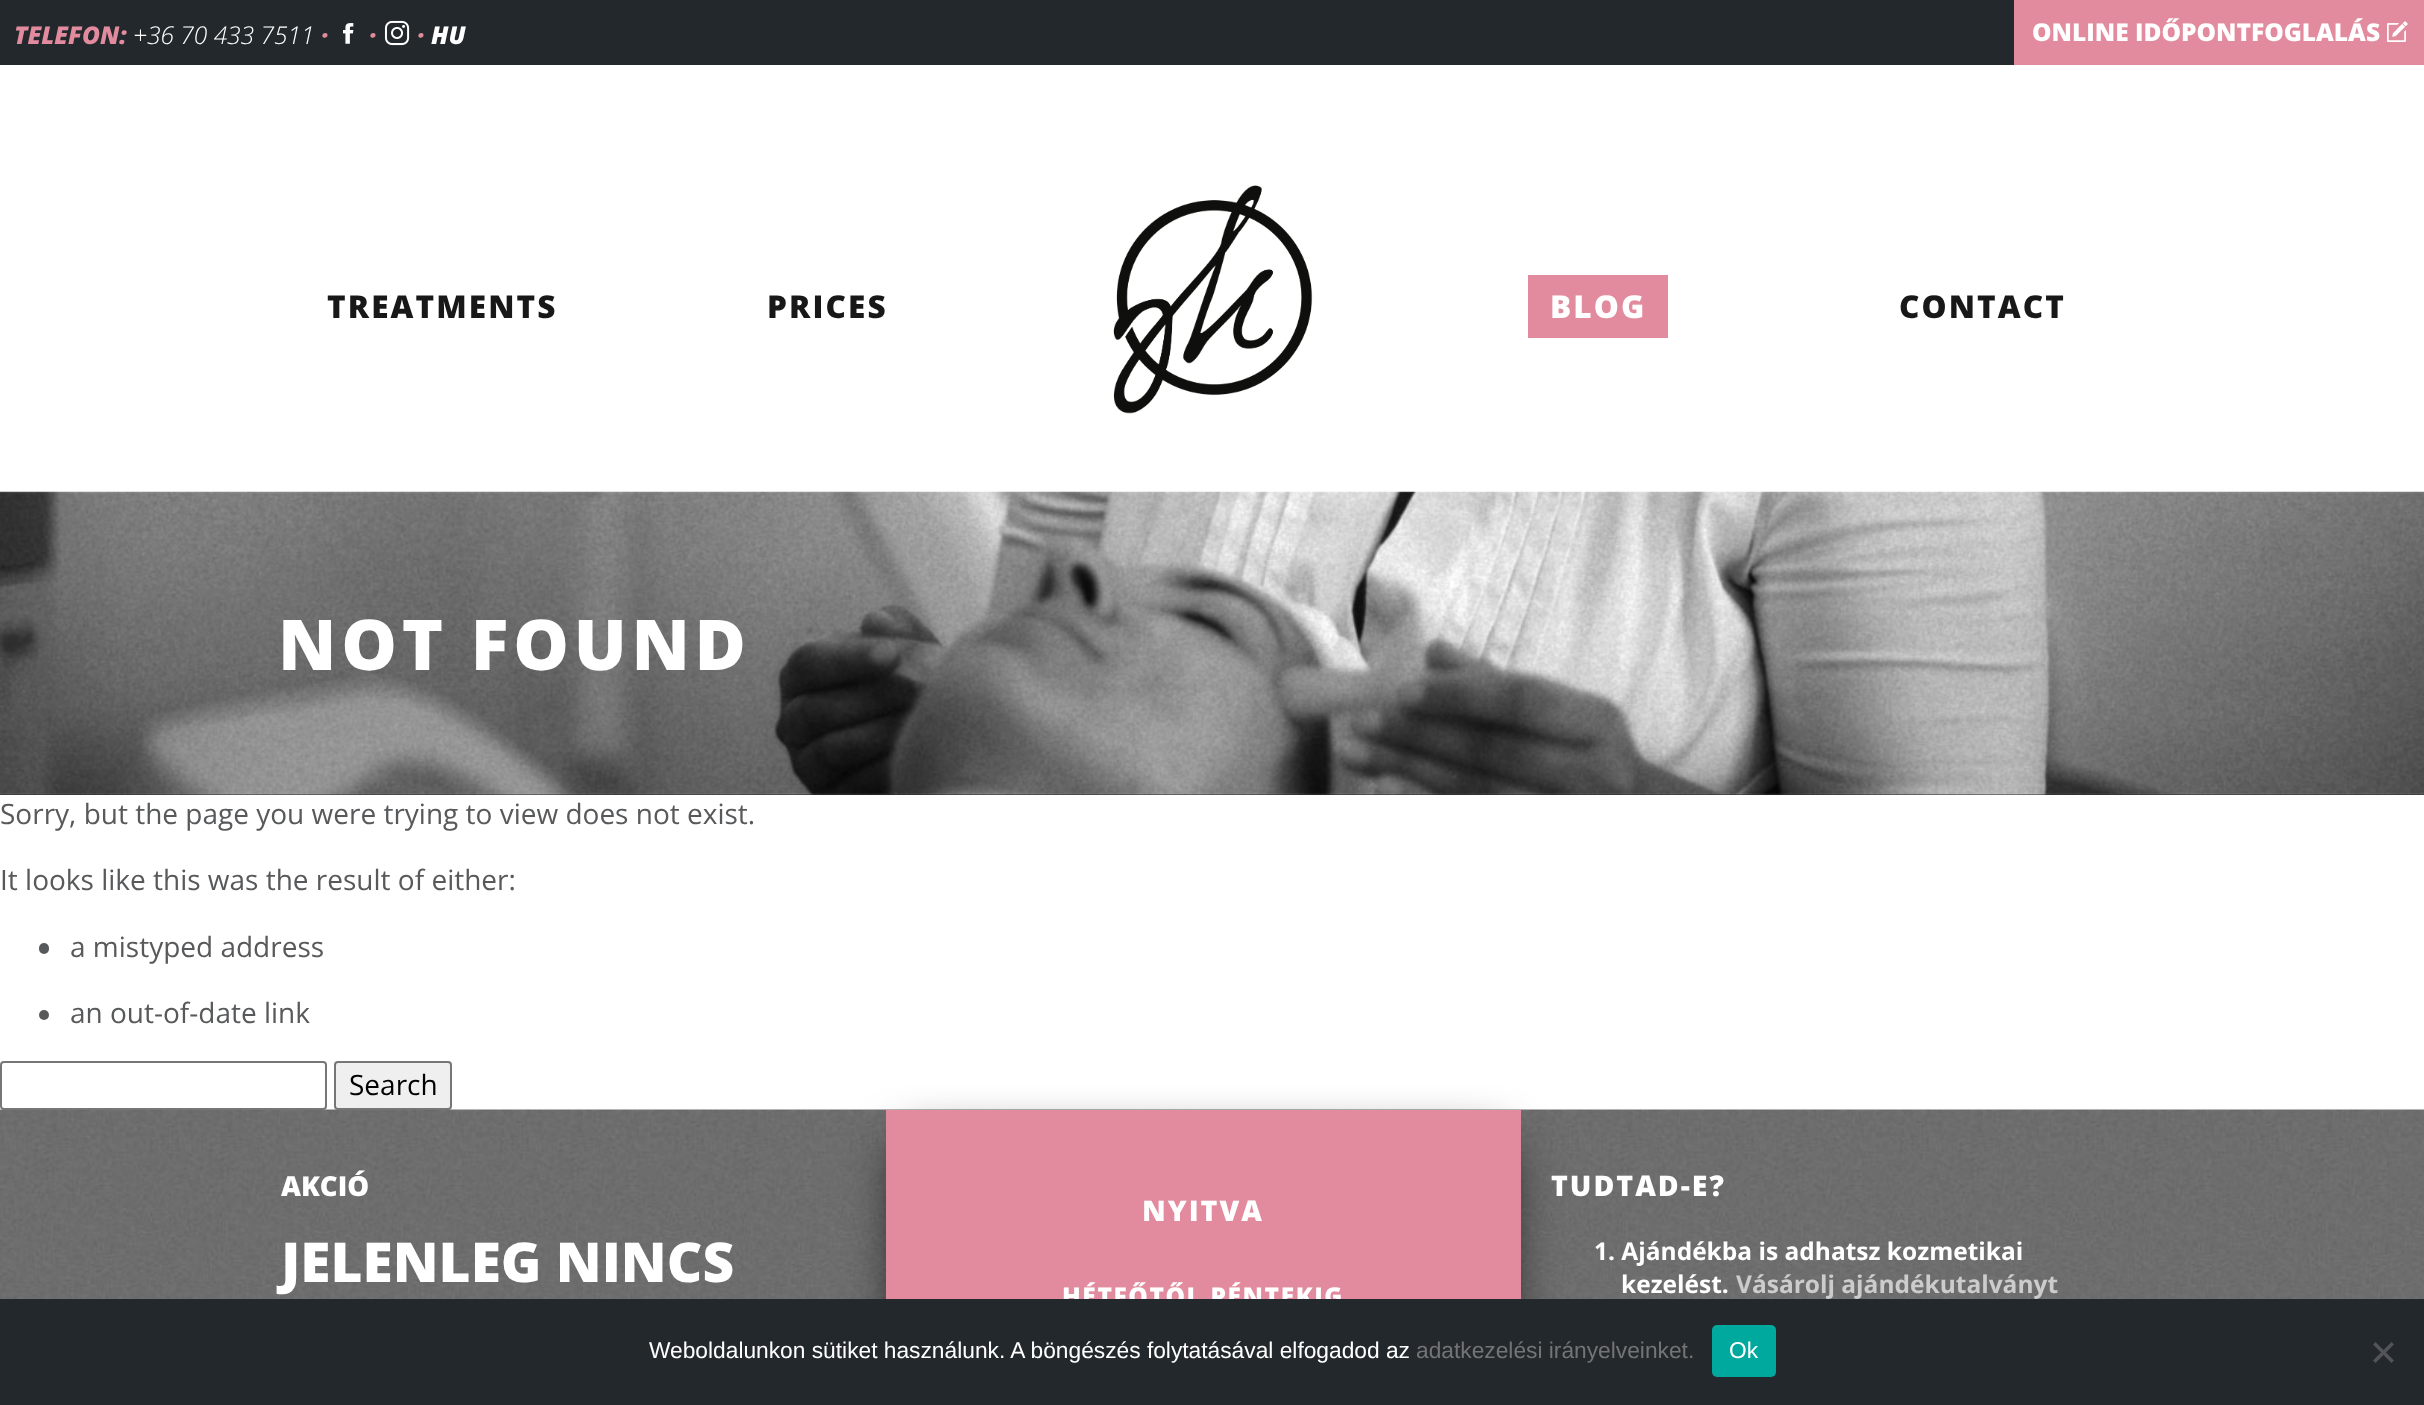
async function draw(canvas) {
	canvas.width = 2424;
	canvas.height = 1405;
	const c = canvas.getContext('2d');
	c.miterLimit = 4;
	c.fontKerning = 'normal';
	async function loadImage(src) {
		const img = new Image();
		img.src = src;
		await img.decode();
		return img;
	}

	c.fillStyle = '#fff';
	c.fillRect(0, 0, 2424, 1405);
	c.fillStyle = '#23282d';
	c.fillRect(0, 0, 2014, 65);
	c.font = 'italic 800 24.5px Open Sans';
	c.fillStyle = '#e38b9e';
	c.fillText('TELEFON:', 14, 44);
	c.font = 'italic 300 24.5px Open Sans';
	c.fillStyle = '#fff';
	c.fillText('+36 70 433 7511', 133, 44);
	c.font = 'italic 800 24.5px Open Sans';
	c.fillStyle = '#e38b9e';
	c.fillText('·', 321, 44);
	c.drawImage(await loadImage('img1.png'), 343, 23, 11, 21);
	c.fillText('·', 369, 44);
	c.drawImage(await loadImage('img2.png'), 384, 20, 26, 26);
	c.fillText('·', 417, 44);
	c.fillStyle = '#fff';
	c.fillText('HU', 431, 44);
	c.fillStyle = '#e38b9e';
	c.fillRect(2014, 0, 410, 65);
	c.font = '800 24.5px Open Sans';
	c.fillStyle = '#fff';
	c.fillText('ONLINE IDŐPONTFOGLALÁS', 2032, 41);
	c.drawImage(await loadImage('img3.png'), 2387, 21, 21, 21);
	c.drawImage(await loadImage('img4.png'), 1113, 185, 200, 229);
	c.letterSpacing = '2.1px';
	c.font = '800 31.5px Open Sans';
	c.fillStyle = '#181818';
	c.fillText('TREATMENTS', 327, 318);
	c.fillText('PRICES', 767, 318);
	c.fillStyle = '#e38b9e';
	c.fillRect(1528, 275, 140, 63);
	c.fillStyle = '#fff';
	c.fillText('BLOG', 1550, 318);
	c.fillStyle = '#181818';
	c.fillText('CONTACT', 1899, 318);
	c.fillStyle = '#272727';
	c.fillRect(0, 794, 2424, 1);
	c.drawImage(await loadImage('img5.png'), 0, 491, 2424, 304);
	c.letterSpacing = '4.75px';
	c.font = '800 70px Open Sans';
	c.fillStyle = '#fff';
	c.fillText('NOT FOUND', 278, 670);
	c.letterSpacing = '0px';
	c.font = '28px Open Sans';
	c.fillStyle = '#58595b';
	c.fillText('Sorry, but the page you were trying to view does not exist.', 0, 824);
	c.fillText('It looks like this was the result of either:', 0, 890);
	c.beginPath();
	c.roundRect(39, 943, 10, 11, 5);
	c.fill();
	c.fillText('a mistyped address', 70, 957);
	c.beginPath();
	c.arc(44, 1015, 5, 0, 2 * Math.PI);
	c.fill();
	c.fillText('an out-of-date link', 70, 1023);
	c.drawImage(await loadImage('img6.png'), 0, 1109, 2424, 190);
	c.fillStyle = '#fff';
	c.beginPath();
	c.roundRect(1, 1062, 325, 47, 3);
	c.fill();
	c.strokeStyle = '#767676';
	c.lineWidth = 2;
	c.stroke();
	c.fillStyle = '#efefef';
	c.beginPath();
	c.roundRect(335, 1062, 116, 47, 3);
	c.fill();
	c.stroke();
	c.fillStyle = '#000';
	c.fillText('Search', 349, 1095);
	c.font = '800 27.5px Open Sans';
	c.fillStyle = '#fff';
	c.fillText('AKCIÓ', 281, 1196);
	c.font = '800 55px Open Sans';
	c.fillText('JELENLEG NINCS', 281, 1282);
	c.fillStyle = '#000';
	c.filter = 'blur(26px)';
	c.beginPath();
	c.rect(903, 1145, 600, 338);
	c.fill();
	c.filter = 'none';
	c.fillStyle = '#e38b9e';
	c.fillRect(886, 1110, 635, 189);
	c.letterSpacing = '2px';
	c.font = '800 28.5px Open Sans';
	c.fillStyle = '#fff';
	c.fillText('NYITVA', 1142, 1221);
	c.letterSpacing = '1.6px';
	c.font = '800 24.5px Open Sans';
	c.fillText('HÉTFŐTŐL PÉNTEKIG', 1062, 1305);
	c.letterSpacing = '2px';
	c.font = '800 28.5px Open Sans';
	c.fillText('TUDTAD-E?', 1551, 1196);
	c.letterSpacing = '0px';
	c.font = 'bold 24.5px Open Sans';
	c.fillText('1. Ajándékba is adhatsz kozmetikai', 1594, 1260);
	c.fillText('kezelést.', 1621, 1293);
	c.fillStyle = '#ccc';
	c.fillText('Vásárolj ajándékutalványt', 1736, 1293);
	c.fillStyle = '#23282d';
	c.fillRect(0, 1299, 2424, 106);
	c.font = '22.75px Liberation Sans';
	c.fillStyle = '#fff';
	c.fillText('Weboldalunkon sütiket használunk. A böngészés folytatásával elfogadod az', 649, 1358);
	c.fillStyle = '#747474';
	c.fillText('adatkezelési irányelveinket.', 1416, 1358);
	c.fillStyle = '#00a99d';
	c.beginPath();
	c.roundRect(1712, 1325, 64, 52, 5);
	c.fill();
	c.fillStyle = '#fff';
	c.fillText('Ok', 1729, 1358);
	c.fillStyle = '#525457';
	c.beginPath();
	c.moveTo(2391.5, 1342);
	c.lineTo(2394, 1344.5);
	c.lineTo(2375.5, 1363);
	c.lineTo(2373, 1360.5);
	c.closePath();
	c.fill();
	c.beginPath();
	c.moveTo(2373, 1344.5);
	c.lineTo(2375.5, 1342);
	c.lineTo(2394, 1360.5);
	c.lineTo(2391.5, 1363);
	c.closePath();
	c.fill();
}

draw(document.querySelector('canvas'));
